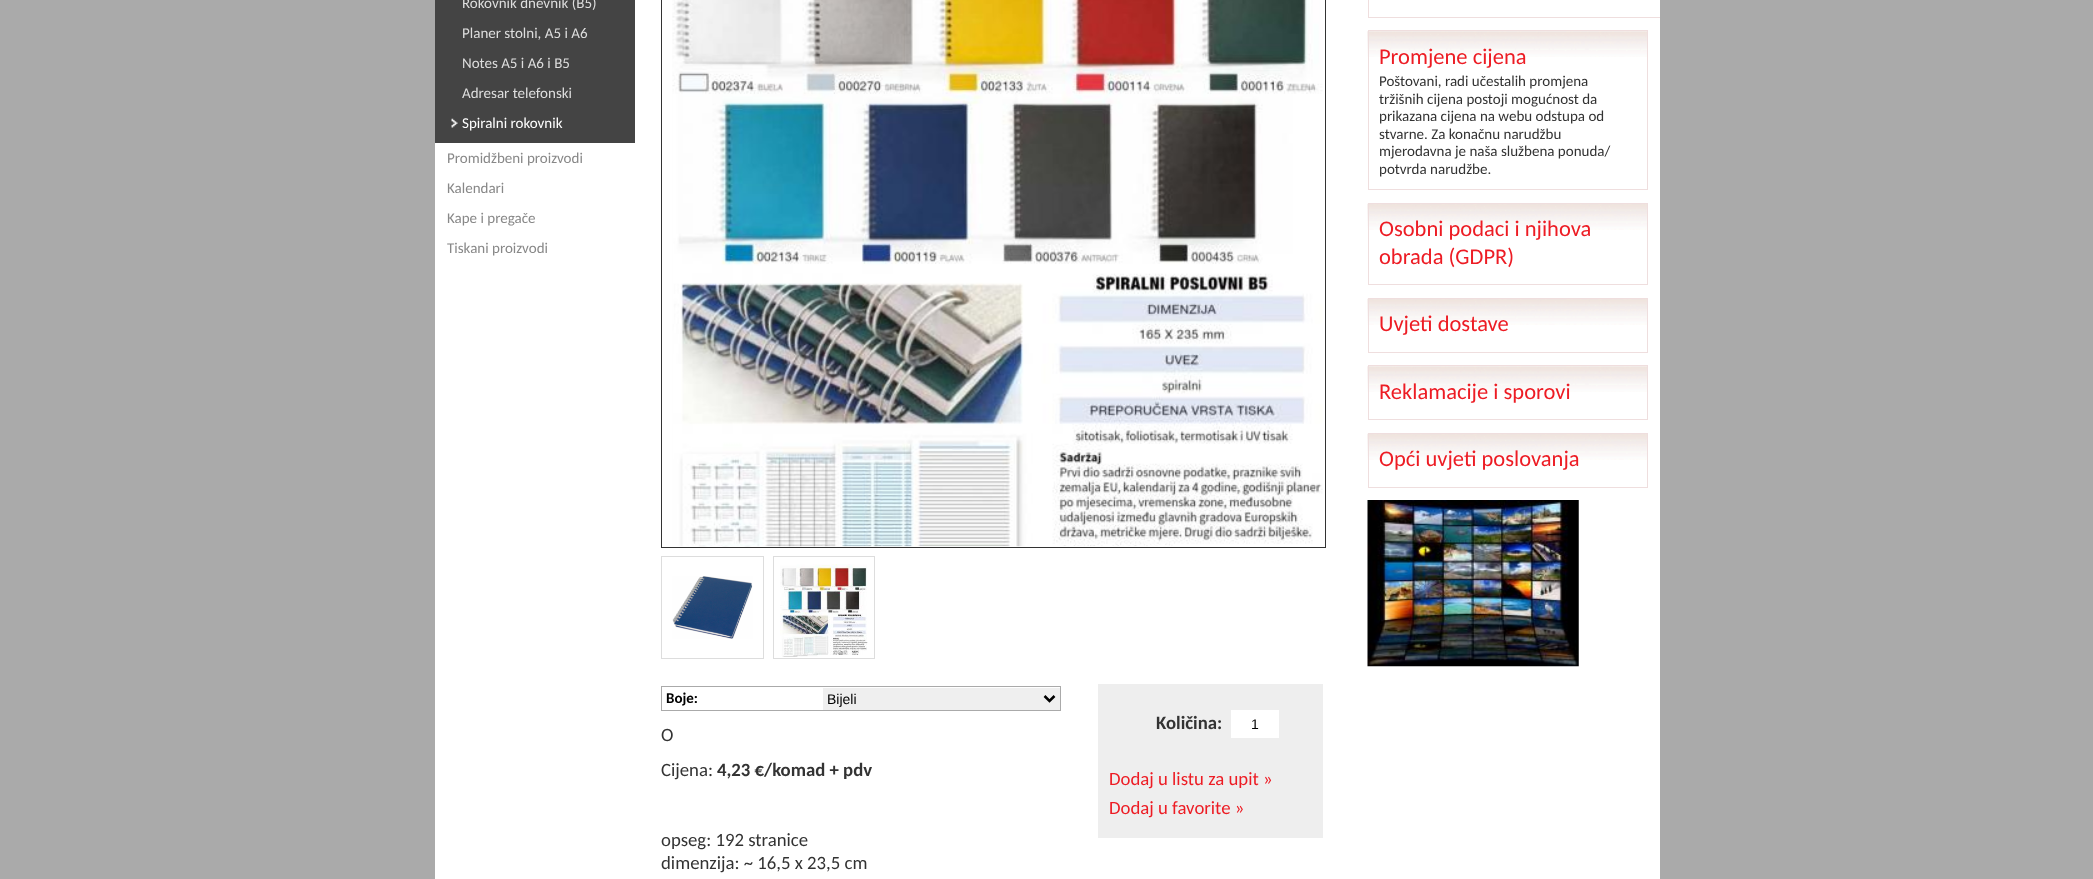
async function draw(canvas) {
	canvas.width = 2093;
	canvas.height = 879;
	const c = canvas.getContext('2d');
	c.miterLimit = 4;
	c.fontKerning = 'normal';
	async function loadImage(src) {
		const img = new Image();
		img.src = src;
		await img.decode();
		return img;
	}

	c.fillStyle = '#aaa';
	c.fillRect(0, 0, 2093, 879);
	c.fillStyle = '#fff';
	c.fillRect(435, 0, 1225, 879);
	c.fillStyle = '#444';
	c.fillRect(435, 0, 200, 143);
	c.font = '15px Carlito';
	c.fillStyle = '#ddd';
	for (const [text, x, y] of [
		['Rokovnik dnevnik (B5)', 462, 8],
		['Planer stolni, A5 i A6', 462, 38],
		['Notes A5 i A6 i B5', 462, 68],
		['Adresar telefonski', 462, 98],
	]) {
		c.fillText(text, x, y);
	}
	c.drawImage(await loadImage('img1.png'), 451, 118, 7, 10);
	c.fillStyle = '#fff';
	c.fillText('Spiralni rokovnik', 462, 128);
	c.fillStyle = '#888';
	for (const [text, x, y] of [
		['Promidžbeni proizvodi', 447, 163],
		['Kalendari', 447, 193],
		['Kape i pregače', 447, 223],
		['Tiskani proizvodi', 447, 253],
	]) {
		c.fillText(text, x, y);
	}
	c.strokeStyle = '#333';
	c.strokeRect(661.5, -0.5, 664, 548);
	c.drawImage(await loadImage('img2.png'), 672, 0, 651, 547);
	c.strokeStyle = '#ddd';
	c.strokeRect(661.5, 556.5, 102, 102);
	c.drawImage(await loadImage('img3.png'), 672, 576, 81, 63);
	c.strokeRect(773.5, 556.5, 101, 102);
	c.drawImage(await loadImage('img4.png'), 780, 564, 88, 93);
	c.strokeStyle = '#aaa';
	c.strokeRect(661.5, 686.5, 399, 24);
	c.font = 'bold 15px Carlito';
	c.fillStyle = '#000';
	c.fillText('Boje:', 666, 703);
	c.fillStyle = '#efefef';
	c.fillRect(823, 688, 237, 22);
	c.beginPath();
	c.moveTo(1044.5, 696);
	c.lineTo(1049.5, 701);
	c.lineTo(1054.5, 696);
	c.strokeStyle = '#000';
	c.lineWidth = 2.5;
	c.stroke();
	c.font = '14px Liberation Sans';
	c.fillStyle = '#000';
	c.fillText('Bijeli', 827, 704);
	c.font = '18.75px Carlito';
	c.fillStyle = '#333';
	c.fillText('O', 661, 741);
	c.fillText('Cijena:', 661, 776);
	c.font = 'bold 18.75px Carlito';
	c.fillText('4,23 €/komad + pdv', 717, 776);
	c.font = '18.75px Carlito';
	c.fillText('opseg: 192 stranice', 661, 846);
	c.fillText('dimenzija: ~ 16,5 x 23,5 cm', 661, 869);
	c.fillStyle = '#eee';
	c.fillRect(1098, 684, 225, 154);
	c.font = 'bold 18.75px Carlito';
	c.fillStyle = '#333';
	c.fillText('Količina:', 1156, 729);
	c.fillStyle = '#fff';
	c.fillRect(1231, 710, 48, 28);
	c.font = '14px Liberation Sans';
	c.fillStyle = '#000';
	c.fillText('1', 1251, 729);
	c.font = '18.75px Carlito';
	c.fillStyle = '#ed1c24';
	c.fillText('Dodaj u listu za upit »', 1109, 785);
	c.fillText('Dodaj u favorite »', 1109, 814);
	c.save();
	c.beginPath();
	c.rect(1355, 0, 305, 684);
	c.clip();
	c.strokeStyle = '#efdede';
	c.lineWidth = 1;
	c.strokeRect(1368.5, -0.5, 309, 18);
	c.restore();
	c.drawImage(await loadImage('img5.png'), 1367, 31, 280, 26);
	c.strokeStyle = '#efdede';
	c.lineWidth = 1;
	c.strokeRect(1368.5, 30.5, 279, 159);
	c.font = '22.5px Carlito';
	c.fillText('Promjene cijena', 1379, 64);
	c.font = '15px Carlito';
	c.fillStyle = '#333';
	for (const [text, x, y] of [
		['Poštovani, radi učestalih promjena', 1379, 86],
		['tržišnih cijena postoji mogućnost da', 1379, 104],
		['prikazana cijena na webu odstupa od', 1379, 121],
		['stvarne. Za konačnu narudžbu', 1379, 139],
		['mjerodavna je naša službena ponuda/', 1379, 156],
		['potvrda narudžbe.', 1379, 174],
	]) {
		c.fillText(text, x, y);
	}
	c.drawImage(await loadImage('img6.png'), 1367, 203, 280, 27);
	c.strokeRect(1368.5, 203.5, 279, 81);
	c.font = '22.5px Carlito';
	c.fillStyle = '#ed1c24';
	c.fillText('Osobni podaci i njihova', 1379, 236);
	c.fillText('obrada (GDPR)', 1379, 264);
	c.drawImage(await loadImage('img7.png'), 1367, 298, 280, 27);
	c.strokeRect(1368.5, 298.5, 279, 54);
	c.fillText('Uvjeti dostave', 1379, 331);
	c.drawImage(await loadImage('img5.png'), 1367, 366, 280, 26);
	c.strokeRect(1368.5, 365.5, 279, 54);
	c.fillText('Reklamacije i sporovi', 1379, 399);
	c.drawImage(await loadImage('img6.png'), 1367, 433, 280, 27);
	c.strokeRect(1368.5, 433.5, 279, 54);
	c.fillText('Opći uvjeti poslovanja', 1379, 466);
	c.drawImage(await loadImage('img8.png'), 1367, 500, 212, 167);
}

draw(document.querySelector('canvas'));
